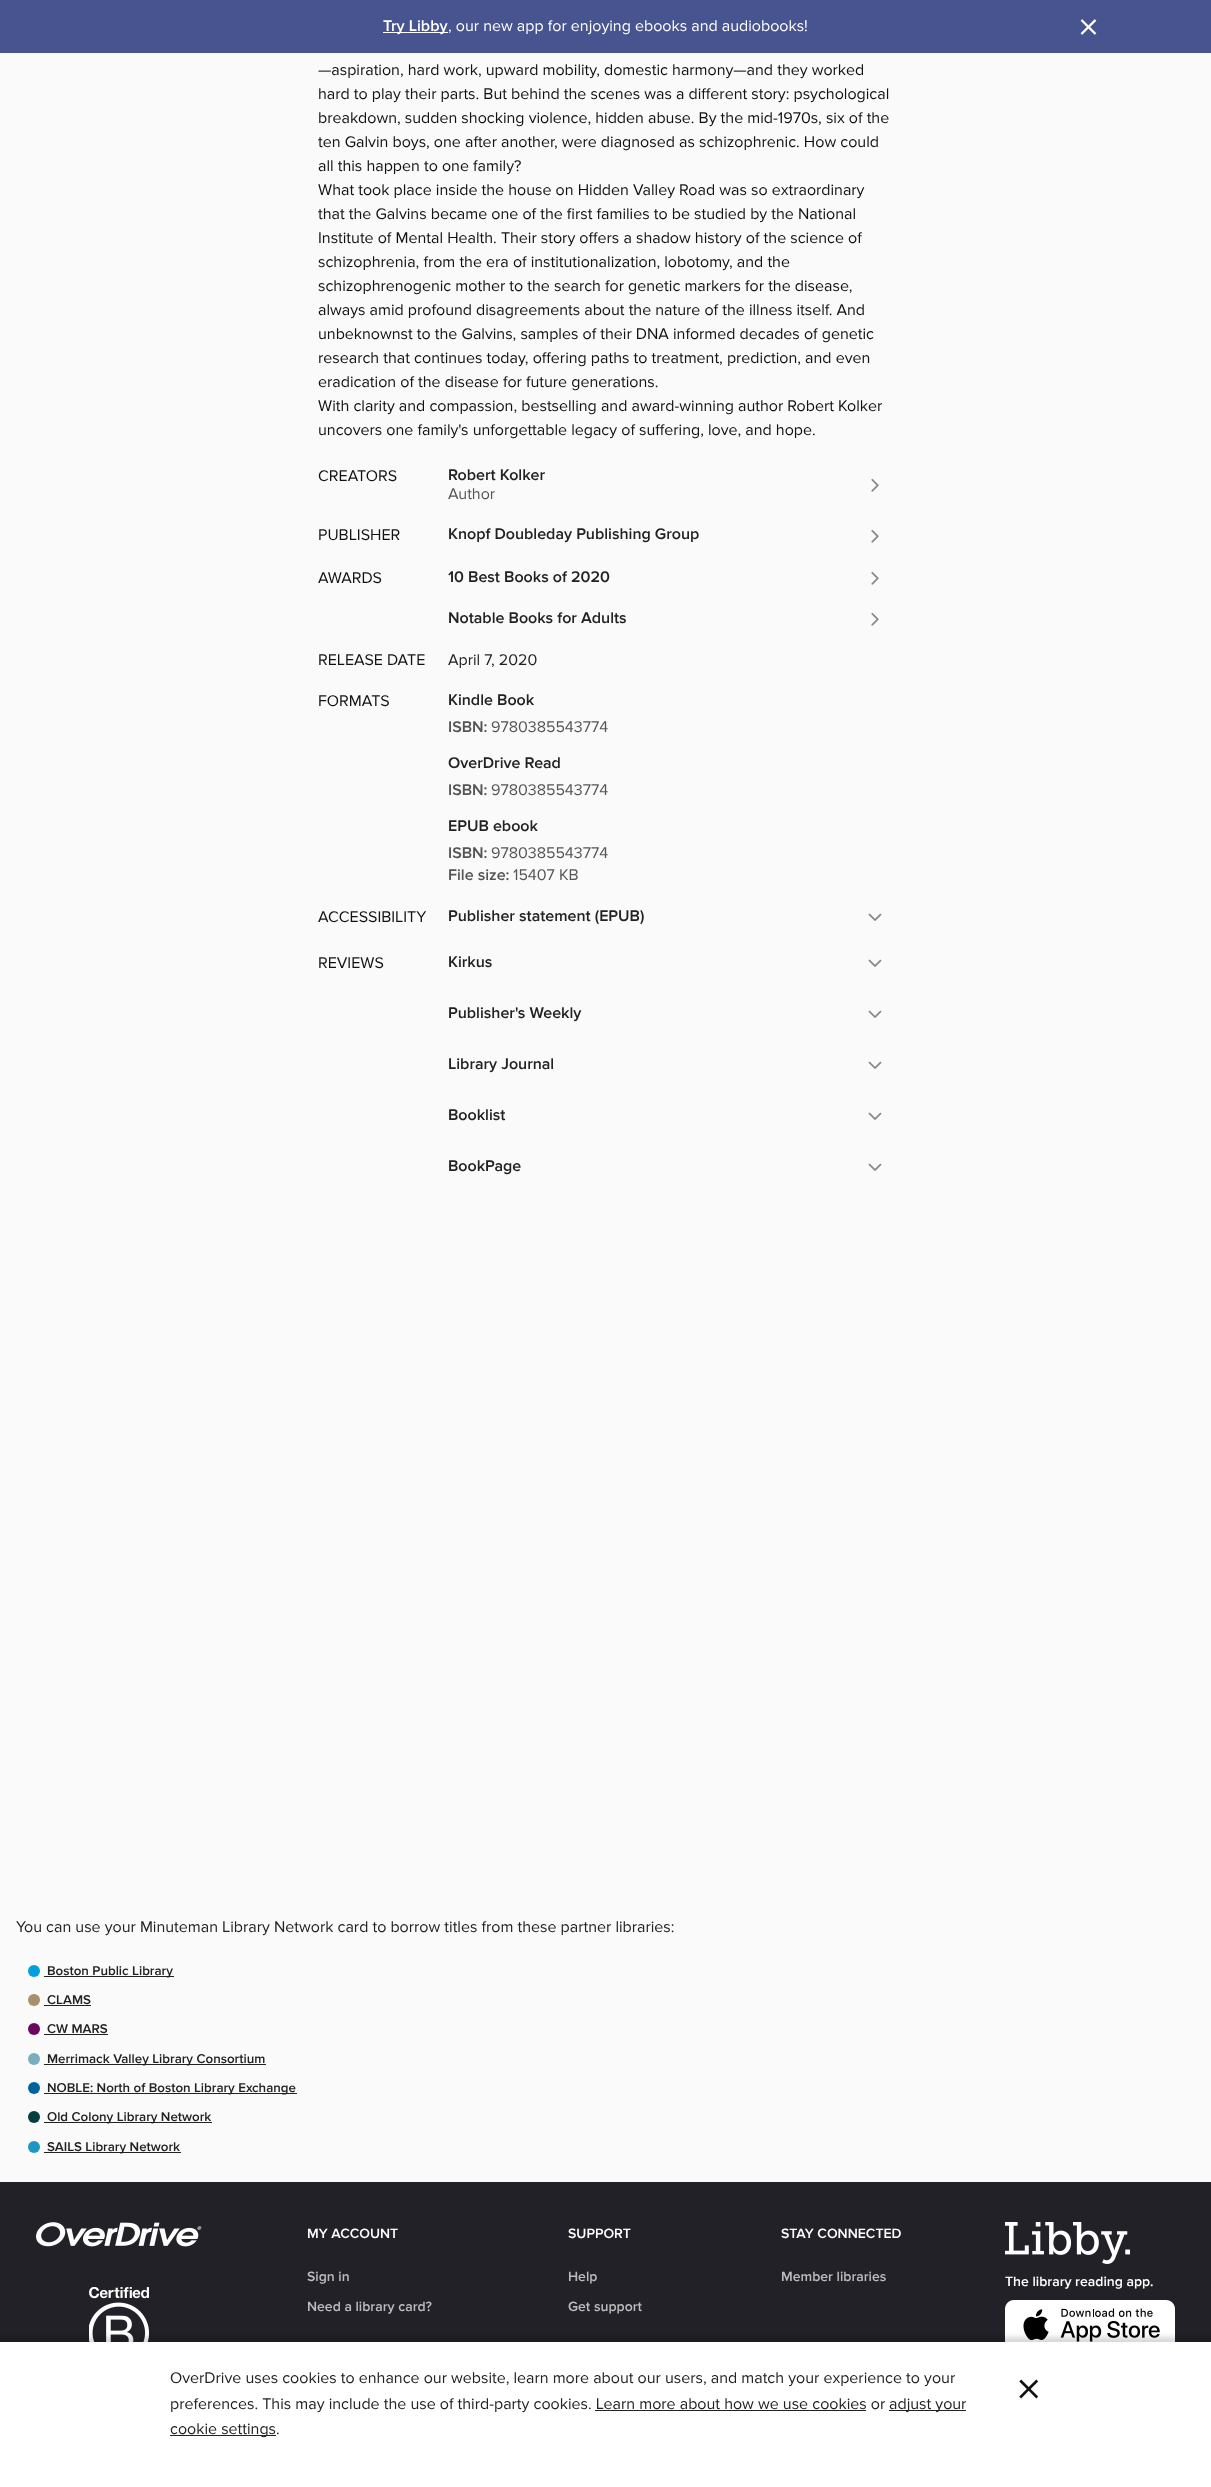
async function draw(canvas) {
	canvas.width = 1211;
	canvas.height = 2487;
	const c = canvas.getContext('2d');
	c.miterLimit = 4;
	c.fontKerning = 'normal';
	async function loadImage(src) {
		const img = new Image();
		img.src = src;
		await img.decode();
		return img;
	}

	c.fillStyle = '#fafafa';
	c.fillRect(0, 0, 1211, 2487);
	c.fillStyle = '#47548f';
	c.fillRect(0, 0, 1211, 53);
	c.fillStyle = '#fff';
	c.fillRect(383, 32, 65, 1);
	c.font = '600 16px Proxima Nova';
	c.fillText('Try Libby', 383, 31);
	c.font = '16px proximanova';
	c.fillText(', our new app for enjoying ebooks and audiobooks!', 448, 31);
	c.font = '42px proximanova';
	c.fillText('×', 1078, 41);
	c.font = '16px proximanova';
	c.fillStyle = '#111';
	for (const [text, x, y] of [
		['—aspiration, hard work, upward mobility, domestic harmony—and they worked', 318, 75],
		['hard to play their parts. But behind the scenes was a different story: psychological', 318, 99],
		['breakdown, sudden shocking violence, hidden abuse. By the mid-1970s, six of the', 318, 123],
		['ten Galvin boys, one after another, were diagnosed as schizophrenic. How could', 318, 147],
		['all this happen to one family?', 318, 171],
		['What took place inside the house on Hidden Valley Road was so extraordinary', 318, 195],
		['that the Galvins became one of the first families to be studied by the National', 318, 219],
		['Institute of Mental Health. Their story offers a shadow history of the science of', 318, 243],
		['schizophrenia, from the era of institutionalization, lobotomy, and the', 318, 267],
		['schizophrenogenic mother to the search for genetic markers for the disease,', 318, 291],
		['always amid profound disagreements about the nature of the illness itself. And', 318, 315],
		['unbeknownst to the Galvins, samples of their DNA informed decades of genetic', 318, 339],
		['research that continues today, offering paths to treatment, prediction, and even', 318, 363],
		['eradication of the disease for future generations.', 318, 387],
		['With clarity and compassion, bestselling and award-winning author Robert Kolker', 318, 411],
		['uncovers one family\'s unforgettable legacy of suffering, love, and hope.', 318, 435],
		['CREATORS', 318, 481],
	]) {
		c.fillText(text, x, y);
	}
	c.font = '600 16px Proxima Nova';
	c.fillStyle = '#222';
	c.fillText('Robert Kolker', 448, 480);
	c.font = '16px proximanova';
	c.fillStyle = '#555';
	c.fillText('Author', 448, 499);
	c.drawImage(await loadImage('img1.png'), 871, 478, 8, 14);
	c.fillStyle = '#111';
	c.fillText('PUBLISHER', 318, 540);
	c.font = '600 16px Proxima Nova';
	c.fillStyle = '#222';
	c.fillText('Knopf Doubleday Publishing Group', 448, 539);
	c.drawImage(await loadImage('img1.png'), 871, 529, 8, 14);
	c.font = '16px proximanova';
	c.fillStyle = '#111';
	c.fillText('AWARDS', 318, 583);
	c.font = '600 16px Proxima Nova';
	c.fillStyle = '#222';
	c.fillText('10 Best Books of 2020', 448, 582);
	c.drawImage(await loadImage('img1.png'), 871, 571, 8, 14);
	c.fillText('Notable Books for Adults', 448, 623);
	c.drawImage(await loadImage('img1.png'), 871, 612, 8, 14);
	c.font = '16px proximanova';
	c.fillStyle = '#111';
	c.fillText('RELEASE DATE', 318, 665);
	c.fillStyle = '#222';
	c.fillText('April 7, 2020', 448, 665);
	c.fillStyle = '#111';
	c.fillText('FORMATS', 318, 706);
	c.font = '600 16px Proxima Nova';
	c.fillStyle = '#222';
	c.fillText('Kindle Book', 448, 705);
	c.fillStyle = '#555';
	c.fillText('ISBN:', 448, 732);
	c.font = '16px proximanova';
	c.fillText('9780385543774', 491, 732);
	c.font = '600 16px Proxima Nova';
	c.fillStyle = '#222';
	c.fillText('OverDrive Read', 448, 768);
	c.fillStyle = '#555';
	c.fillText('ISBN:', 448, 795);
	c.font = '16px proximanova';
	c.fillText('9780385543774', 491, 795);
	c.font = '600 16px Proxima Nova';
	c.fillStyle = '#222';
	c.fillText('EPUB ebook', 448, 831);
	c.fillStyle = '#555';
	c.fillText('ISBN:', 448, 858);
	c.font = '16px proximanova';
	c.fillText('9780385543774', 491, 858);
	c.font = '600 16px Proxima Nova';
	c.fillText('File size:', 448, 880);
	c.font = '16px proximanova';
	c.fillText('15407 KB', 513, 880);
	c.fillStyle = '#111';
	c.fillText('ACCESSIBILITY', 318, 922);
	c.font = '600 16px Proxima Nova';
	c.fillStyle = '#222';
	c.fillText('Publisher statement (EPUB)', 448, 921);
	c.drawImage(await loadImage('img2.png'), 868, 913, 14, 8);
	c.font = '16px proximanova';
	c.fillStyle = '#111';
	c.fillText('REVIEWS', 318, 968);
	c.font = '600 16px Proxima Nova';
	c.fillStyle = '#222';
	c.fillText('Kirkus', 448, 967);
	c.drawImage(await loadImage('img2.png'), 868, 959, 14, 8);
	c.fillText('Publisher\'s Weekly', 448, 1018);
	c.drawImage(await loadImage('img2.png'), 868, 1010, 14, 8);
	c.fillText('Library Journal', 448, 1069);
	c.drawImage(await loadImage('img2.png'), 868, 1061, 14, 8);
	c.fillText('Booklist', 448, 1120);
	c.drawImage(await loadImage('img2.png'), 868, 1112, 14, 8);
	c.fillText('BookPage', 448, 1171);
	c.drawImage(await loadImage('img2.png'), 868, 1163, 14, 8);
	c.font = '16px proximanova';
	c.fillText('You can use your Minuteman Library Network card to borrow titles from these partner libraries:', 16, 1932);
	c.fillStyle = '#009fde';
	c.beginPath();
	c.arc(34, 1971, 6, 0, 2 * Math.PI);
	c.fill();
	c.fillStyle = '#222';
	c.fillRect(44, 1976, 130, 1);
	c.font = '600 13.3px Proxima Nova';
	c.fillText('Boston Public Library', 47, 1975);
	c.fillStyle = '#a8906a';
	c.beginPath();
	c.arc(34, 2000, 6, 0, 2 * Math.PI);
	c.fill();
	c.fillStyle = '#222';
	c.fillText('CLAMS', 47, 2004);
	c.fillRect(44, 2005, 47, 1);
	c.fillStyle = '#6a085f';
	c.beginPath();
	c.arc(34, 2029, 6, 0, 2 * Math.PI);
	c.fill();
	c.fillStyle = '#222';
	c.fillText('CW MARS', 47, 2033);
	c.fillRect(44, 2034, 64, 1);
	c.fillStyle = '#77afbe';
	c.beginPath();
	c.arc(34, 2059, 6, 0, 2 * Math.PI);
	c.fill();
	c.fillStyle = '#222';
	c.fillRect(44, 2064, 222, 1);
	c.fillText('Merrimack Valley Library Consortium', 47, 2063);
	c.fillStyle = '#00639e';
	c.beginPath();
	c.arc(34, 2088, 6, 0, 2 * Math.PI);
	c.fill();
	c.fillStyle = '#222';
	c.fillRect(44, 2093, 253, 1);
	c.fillText('NOBLE: North of Boston Library Exchange', 47, 2092);
	c.fillStyle = '#043f3f';
	c.beginPath();
	c.arc(34, 2117, 6, 0, 2 * Math.PI);
	c.fill();
	c.fillStyle = '#222';
	c.fillRect(44, 2122, 168, 1);
	c.fillText('Old Colony Library Network', 47, 2121);
	c.fillStyle = '#1c97c3';
	c.beginPath();
	c.arc(34, 2147, 6, 0, 2 * Math.PI);
	c.fill();
	c.fillStyle = '#222';
	c.fillRect(44, 2152, 137, 1);
	c.fillText('SAILS Library Network', 47, 2151);
	c.fillStyle = '#212127';
	c.fillRect(0, 2182, 1211, 160);
	c.drawImage(await loadImage('img3.png'), 36, 2222, 166, 25);
	c.drawImage(await loadImage('img4.png'), 89, 2287, 60, 55);
	c.font = '600 14px Proxima Nova';
	c.fillStyle = '#fff';
	c.fillText('MY ACCOUNT', 307, 2238);
	c.fillStyle = '#bcbcbe';
	c.fillText('Sign in', 307, 2281);
	c.fillText('Need a library card?', 307, 2311);
	c.fillStyle = '#fff';
	c.fillText('SUPPORT', 568, 2238);
	c.fillStyle = '#bcbcbe';
	c.fillText('Help', 568, 2281);
	c.fillText('Get support', 568, 2311);
	c.fillStyle = '#fff';
	c.fillText('STAY CONNECTED', 781, 2238);
	c.fillStyle = '#bcbcbe';
	c.fillText('Member libraries', 781, 2281);
	c.drawImage(await loadImage('img5.png'), 1005, 2222, 125, 42);
	c.fillStyle = '#fff';
	c.fillText('The library reading app.', 1005, 2286);
	c.drawImage(await loadImage('img6.png'), 1005, 2300, 170, 42);
	c.fillStyle = '#00000026';
	c.filter = 'blur(2.5px)';
	c.beginPath();
	c.rect(-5, 2337, 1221, 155);
	c.fill();
	c.filter = 'none';
	c.fillStyle = '#fff';
	c.fillRect(0, 2342, 1211, 145);
	c.font = '16px proximanova';
	c.fillStyle = '#222';
	c.fillText('OverDrive uses cookies to enhance our website, learn more about our users, and match your experience to your', 170, 2383);
	c.fillText('preferences. This may include the use of third-party cookies. Learn more about how we use cookies or', 170, 2409);
	c.fillRect(595, 2410, 271, 1);
	c.fillRect(889, 2410, 77, 1);
	c.fillText('adjust your', 889, 2409);
	c.fillRect(170, 2435, 106, 1);
	c.fillText('cookie settings.', 170, 2434);
	c.font = '51px proximanova';
	c.fillStyle = '#111';
	c.fillText('×', 1016, 2406);
}

draw(document.querySelector('canvas'));
